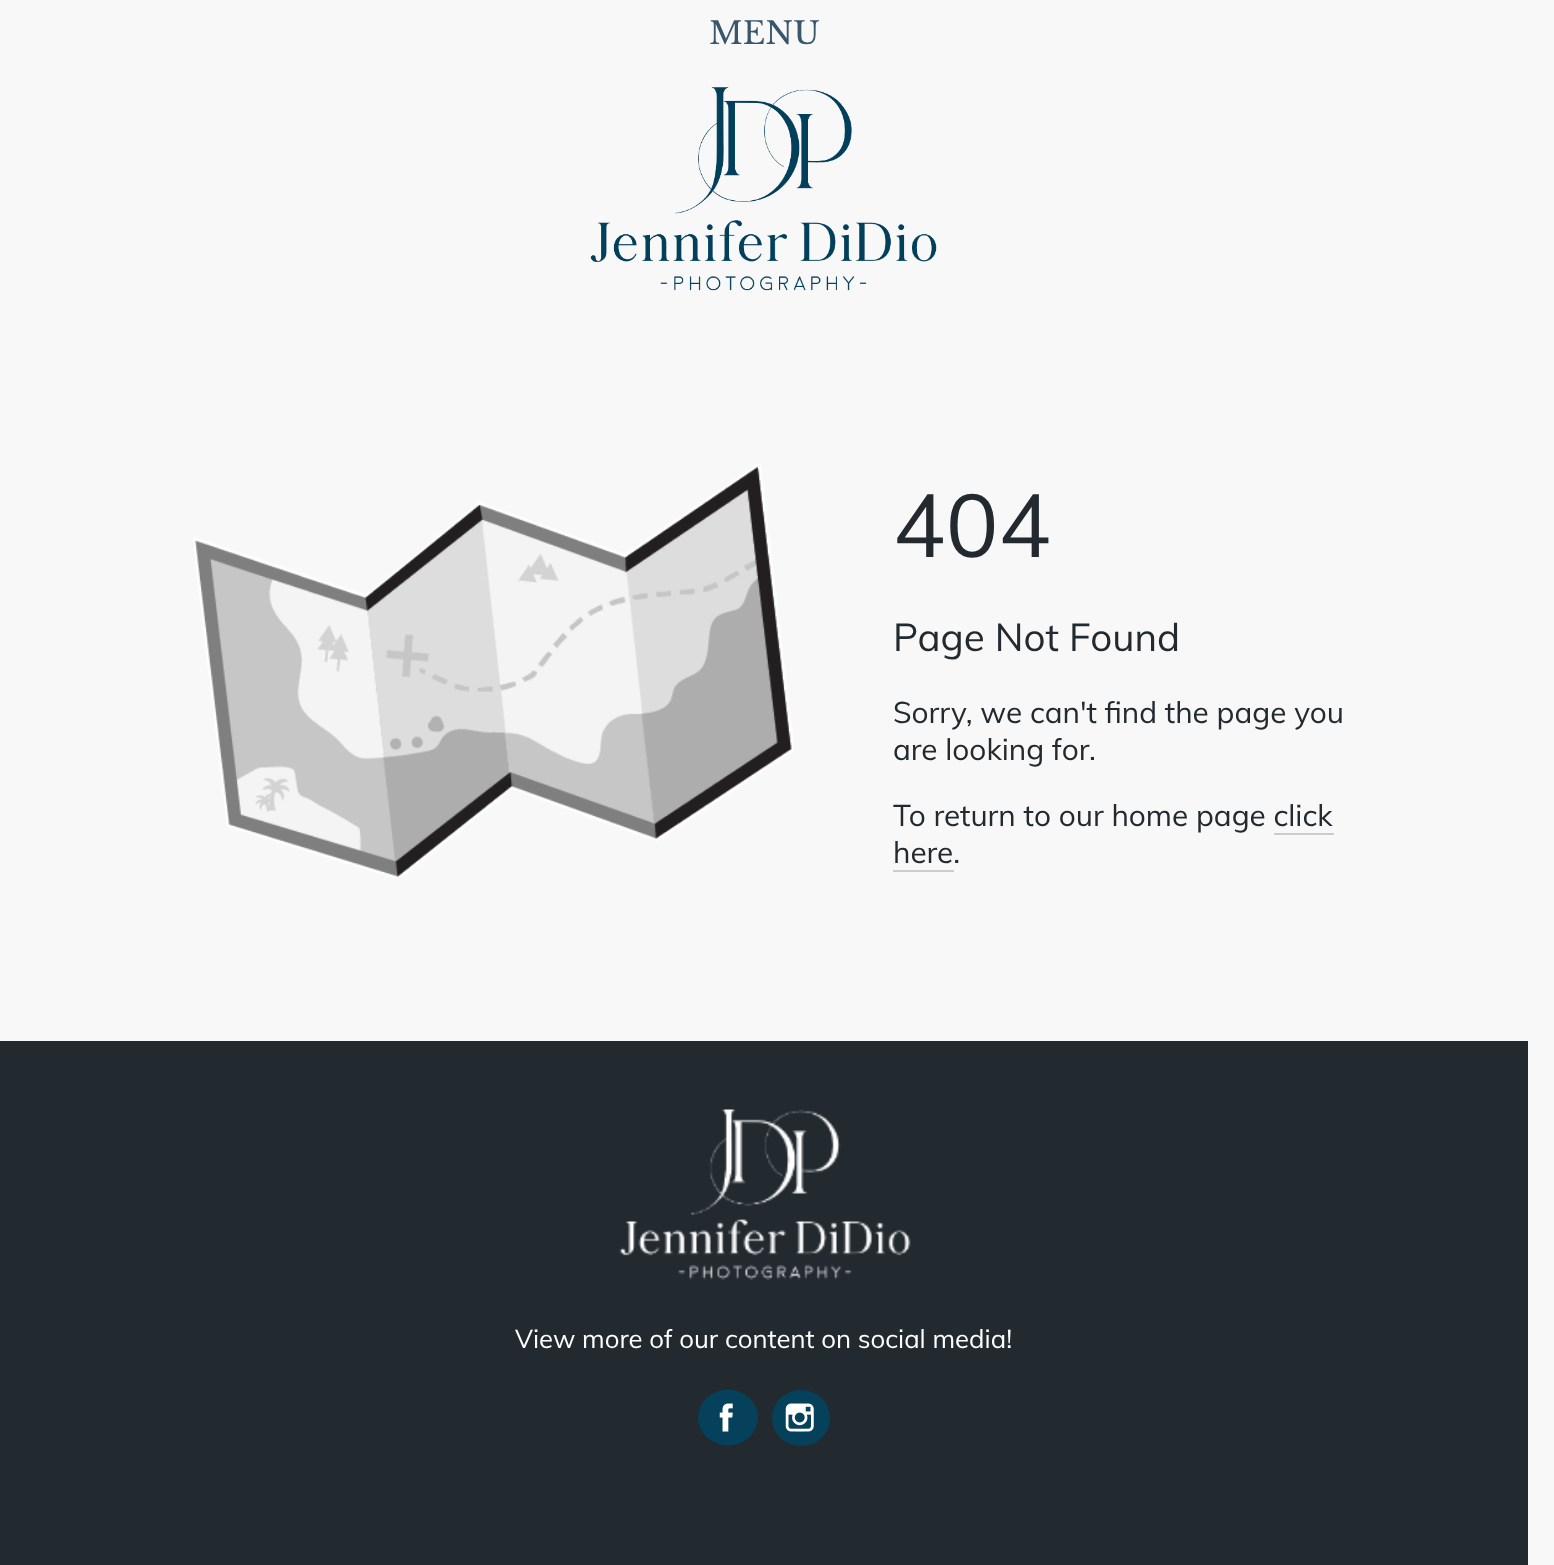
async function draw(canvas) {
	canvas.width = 1554;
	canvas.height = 1565;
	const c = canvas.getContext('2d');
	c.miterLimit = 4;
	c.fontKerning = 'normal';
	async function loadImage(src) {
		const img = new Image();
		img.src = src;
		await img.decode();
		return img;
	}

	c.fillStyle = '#f8f8f8';
	c.fillRect(0, 0, 1554, 1565);
	c.font = '31px Libre Baskerville';
	c.fillStyle = '#39566b';
	c.fillText('MENU', 709, 44);
	c.drawImage(await loadImage('img1.png'), 590, 87, 347, 204);
	c.drawImage(await loadImage('img2.png'), 193, 463, 601, 416);
	c.font = '88px Muli';
	c.fillStyle = '#22292f';
	c.fillText('404', 893, 557);
	c.font = '38.5px Muli';
	c.fillText('Page Not Found', 893, 651);
	c.font = '29.75px Muli';
	for (const [text, x, y] of [
		['Sorry, we can\'t find the page you', 893, 723],
		['are looking for.', 893, 760],
		['To return to our home page click', 893, 826],
		['here.', 893, 863],
	]) {
		c.fillText(text, x, y);
	}
	for (const [x, y, w, h, color] of [
		[1274, 833, 60, 2, '#ccc'],
		[893, 870, 61, 2, '#ccc'],
		[0, 1041, 1528, 524, '#22292f'],
	]) {
		c.fillStyle = color;
		c.fillRect(x, y, w, h);
	}
	c.drawImage(await loadImage('img3.png'), 619, 1109, 292, 171);
	c.font = '25.75px Muli';
	c.fillStyle = '#fff';
	c.fillText('View more of our content on social media!', 515, 1348);
	c.fillStyle = '#06415b';
	c.beginPath();
	c.ellipse(728, 1417.5, 30, 28, 0, 0, 2 * Math.PI);
	c.fill();
	c.drawImage(await loadImage('img4.png'), 719, 1403, 14, 29);
	c.beginPath();
	c.roundRect(772, 1390, 58, 56, 28);
	c.fill();
	c.drawImage(await loadImage('img5.png'), 785, 1403, 29, 29);
}

draw(document.querySelector('canvas'));
